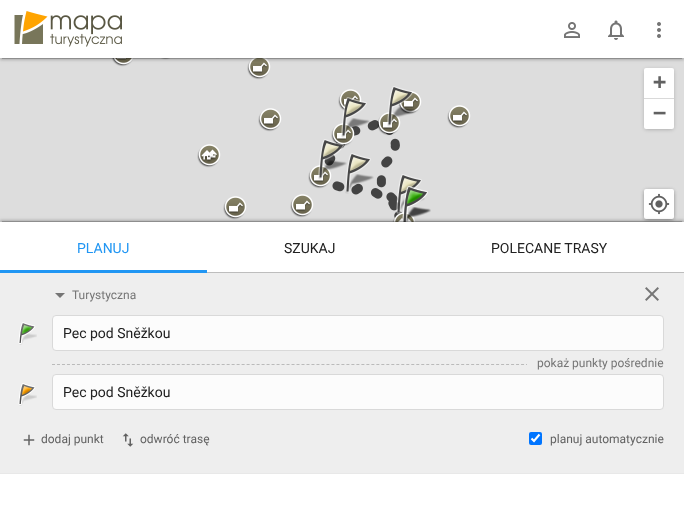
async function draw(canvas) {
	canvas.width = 684;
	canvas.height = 523;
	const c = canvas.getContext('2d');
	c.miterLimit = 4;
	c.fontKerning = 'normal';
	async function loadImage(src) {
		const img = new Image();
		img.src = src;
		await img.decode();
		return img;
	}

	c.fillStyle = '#ddd';
	c.fillRect(0, 0, 684, 523);
	c.drawImage(await loadImage('img1.png'), 111, 58, 22, 9);
	c.drawImage(await loadImage('img2.png'), 161, 58, 9, 2);
	c.fillStyle = '#d9d9d9';
	c.fillRect(216, 58, 3, 1);
	c.drawImage(await loadImage('img3.png'), 247, 58, 24, 22);
	c.drawImage(await loadImage('img4.png'), 338, 89, 24, 22);
	c.drawImage(await loadImage('img6.png'), 398, 91, 24, 24);
	c.drawImage(await loadImage('img18.png'), 324, 120, 79, 98);
	c.drawImage(await loadImage('img8.png'), 377, 112, 24, 24);
	c.drawImage(await loadImage('img5.png'), 387, 86, 29, 41);
	c.drawImage(await loadImage('img6.png'), 258, 108, 24, 24);
	c.drawImage(await loadImage('img9.png'), 331, 123, 24, 23);
	c.drawImage(await loadImage('img7.png'), 341, 97, 29, 41);
	c.drawImage(await loadImage('img6.png'), 447, 105, 24, 24);
	c.drawImage(await loadImage('img10.png'), 197, 144, 24, 24);
	c.drawImage(await loadImage('img13.png'), 308, 165, 24, 24);
	c.drawImage(await loadImage('img11.png'), 318, 139, 29, 41);
	c.drawImage(await loadImage('img12.png'), 345, 153, 29, 41);
	c.drawImage(await loadImage('img17.png'), 392, 212, 24, 10);
	c.drawImage(await loadImage('img14.png'), 396, 174, 29, 41);
	c.drawImage(await loadImage('img15.png'), 402, 186, 29, 36);
	c.drawImage(await loadImage('img6.png'), 223, 196, 24, 24);
	c.drawImage(await loadImage('img6.png'), 290, 194, 24, 24);
	c.drawImage(await loadImage('img16.png'), 402, 186, 29, 36);
	c.fillStyle = '#0000004d';
	c.filter = 'blur(2px)';
	c.beginPath();
	c.roundRect(645, 70, 28, 59, 1);
	c.fill();
	c.filter = 'none';
	c.fillStyle = '#fff';
	c.beginPath();
	c.roundRect(644, 68, 30, 31, [2, 2, 0, 0]);
	c.fill();
	c.fillStyle = '#d9d9d9';
	c.fillRect(644, 98, 30, 1);
	c.font = 'bold 22px DejaVu Sans Mono';
	c.fillStyle = '#616161';
	c.fillText('+', 653, 89);
	c.fillStyle = '#fff';
	c.beginPath();
	c.roundRect(644, 99, 30, 30, [0, 0, 2, 2]);
	c.fill();
	c.fillStyle = '#616161';
	c.fillText('−', 653, 120);
	c.fillStyle = '#0000004d';
	c.filter = 'blur(2px)';
	c.beginPath();
	c.roundRect(645, 191, 28, 28, 1);
	c.fill();
	c.filter = 'none';
	c.filter = 'blur(2px)';
	c.beginPath();
	c.roundRect(645, 191, 28, 28, 1);
	c.fill();
	c.filter = 'none';
	c.fillStyle = '#fff';
	c.beginPath();
	c.roundRect(644, 189, 30, 30, 2);
	c.fill();
	c.drawImage(await loadImage('img19.png'), 648, 193, 22, 22);
	c.fillStyle = '#0000001f';
	c.filter = 'blur(2.5px)';
	c.beginPath();
	c.rect(0, 221, 684, 251);
	c.fill();
	c.filter = 'none';
	c.fillStyle = '#00000033';
	c.filter = 'blur(0.5px)';
	c.beginPath();
	c.rect(2, 221, 680, 247);
	c.fill();
	c.filter = 'none';
	c.fillStyle = '#00000024';
	c.filter = 'blur(1px)';
	c.beginPath();
	c.rect(0, 220, 684, 251);
	c.fill();
	c.filter = 'none';
	c.fillStyle = '#fff';
	c.fillRect(0, 222, 684, 50);
	c.fillStyle = '#0000001f';
	c.filter = 'blur(2.5px)';
	c.beginPath();
	c.rect(0, 1, 684, 58);
	c.fill();
	c.filter = 'none';
	c.fillStyle = '#00000033';
	c.filter = 'blur(0.5px)';
	c.beginPath();
	c.rect(2, 5, 680, 54);
	c.fill();
	c.filter = 'none';
	c.fillStyle = '#00000024';
	c.filter = 'blur(1px)';
	c.beginPath();
	c.rect(0, 2, 684, 58);
	c.fill();
	c.filter = 'none';
	c.fillStyle = '#fff';
	c.fillRect(0, 0, 684, 58);
	c.drawImage(await loadImage('img20.png'), 14, 11, 108, 36);
	c.drawImage(await loadImage('img21.png'), 564, 22, 16, 16);
	c.drawImage(await loadImage('img22.png'), 608, 20, 16, 20);
	c.drawImage(await loadImage('img23.png'), 657, 22, 4, 16);
	c.fillStyle = '#bdbdbd';
	c.fillRect(207, 272, 477, 1);
	c.fillStyle = '#2196f3';
	c.fillRect(0, 270, 207, 3);
	c.font = '14px Roboto';
	c.fillText('PLANUJ', 77, 253);
	c.fillStyle = '#212121';
	c.fillText('SZUKAJ', 284, 253);
	c.fillText('POLECANE TRASY', 491, 253);
	c.fillStyle = '#eee';
	c.fillRect(0, 273, 684, 200);
	c.fillStyle = '#757575';
	c.beginPath();
	c.moveTo(55, 293);
	c.lineTo(65, 293);
	c.lineTo(60, 298);
	c.closePath();
	c.fill();
	c.font = '12px Roboto';
	c.fillText('Turystyczna', 72, 299);
	c.drawImage(await loadImage('img24.png'), 645, 287, 14, 14);
	c.drawImage(await loadImage('img25.png'), 18, 322, 19, 23);
	c.fillStyle = '#fcfcfc';
	c.beginPath();
	c.roundRect(52.5, 315.5, 611, 35, 3.5);
	c.fill();
	c.strokeStyle = '#d9d9d9';
	c.stroke();
	c.font = '14px Roboto';
	c.fillStyle = '#212121';
	c.fillText('Pec pod Sněžkou', 63, 338);
	c.beginPath();
	c.moveTo(52, 364.5);
	c.lineTo(664, 364.5);
	c.strokeStyle = '#bababa';
	c.setLineDash([3, 1.99]);
	c.stroke();
	c.fillStyle = '#eee';
	c.fillRect(527, 364, 137, 1);
	c.font = '12px Roboto';
	c.fillStyle = '#757575';
	c.fillText('pokaż punkty pośrednie', 537, 367);
	c.fillStyle = '#fcfcfc';
	c.beginPath();
	c.roundRect(52.5, 374.5, 611, 35, 3.5);
	c.fill();
	c.strokeStyle = '#d9d9d9';
	c.setLineDash([]);
	c.stroke();
	c.font = '14px Roboto';
	c.fillStyle = '#212121';
	c.fillText('Pec pod Sněžkou', 63, 397);
	c.drawImage(await loadImage('img26.png'), 18, 383, 19, 23);
	c.drawImage(await loadImage('img27.png'), 23, 434, 12, 12);
	c.font = '12px Roboto';
	c.fillStyle = '#616161';
	c.fillText('dodaj punkt', 41, 443);
	c.drawImage(await loadImage('img28.png'), 122, 433, 12, 14);
	c.fillText('odwróć trasę', 140, 443);
	c.fillStyle = '#0075ff';
	c.beginPath();
	c.roundRect(529, 432, 13, 13, 2);
	c.fill();
	c.beginPath();
	c.moveTo(531.5, 438.5);
	c.lineTo(534, 441);
	c.lineTo(539.5, 434.5);
	c.strokeStyle = '#fff';
	c.lineWidth = 2.1;
	c.stroke();
	c.fillStyle = '#616161';
	c.fillText('planuj automatycznie', 550, 443);
	c.fillStyle = '#fff';
	c.fillRect(0, 474, 684, 49);
	c.fillStyle = '#e8e8e8';
	c.fillRect(0, 473, 684, 1);
}

draw(document.querySelector('canvas'));
